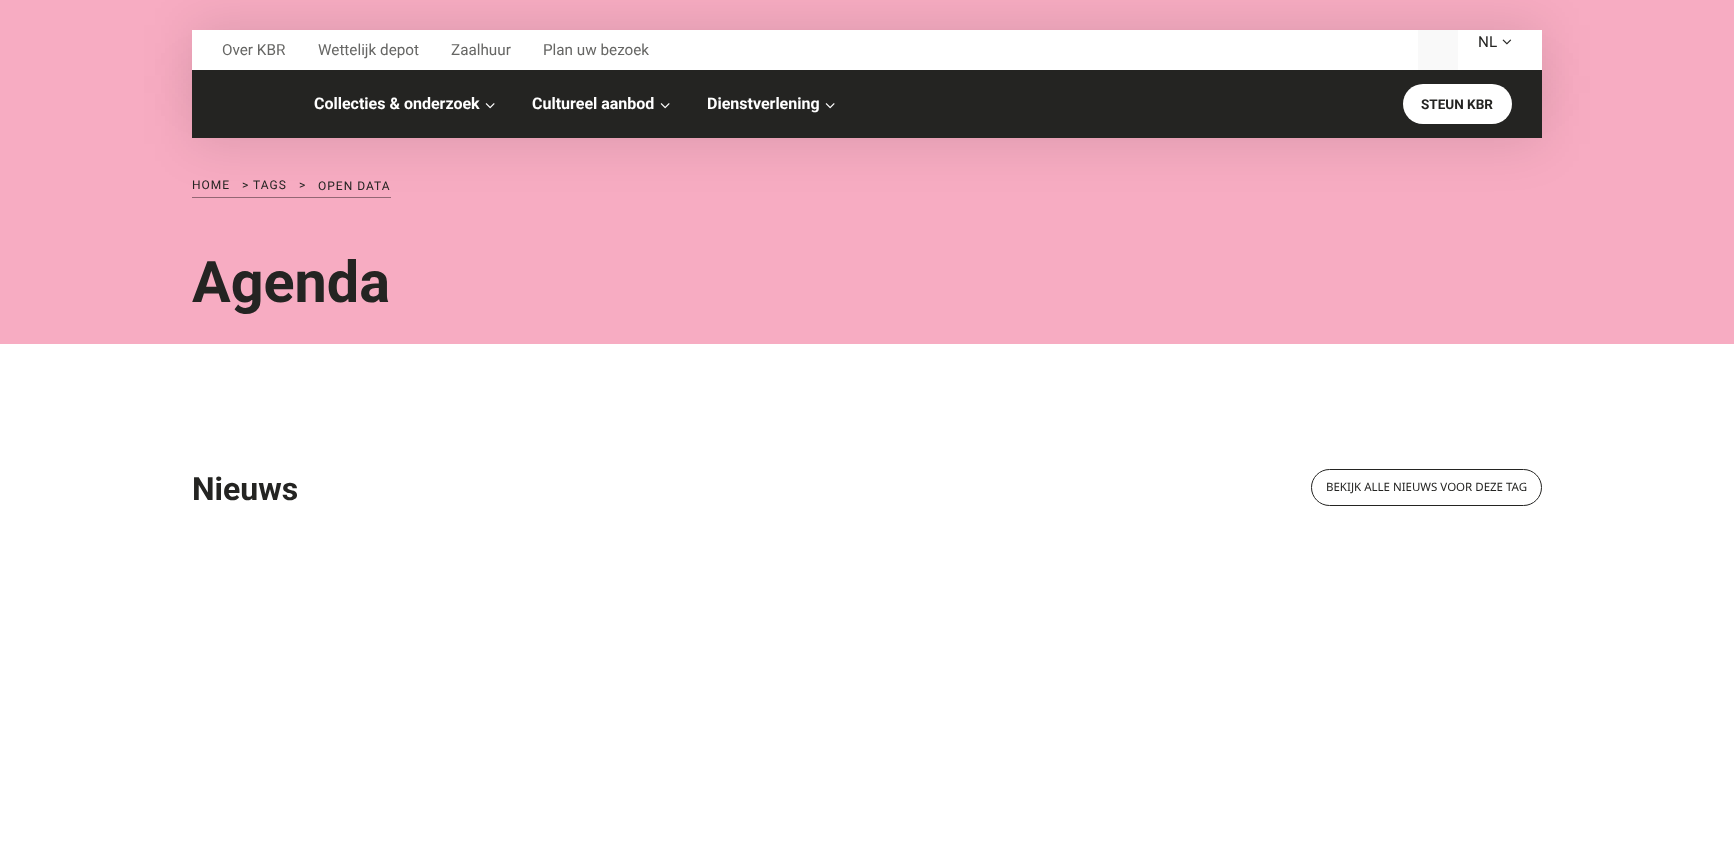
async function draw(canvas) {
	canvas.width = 1734;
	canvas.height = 858;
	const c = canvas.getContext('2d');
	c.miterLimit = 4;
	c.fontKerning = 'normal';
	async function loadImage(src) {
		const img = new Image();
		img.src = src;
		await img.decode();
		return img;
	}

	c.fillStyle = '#fff';
	c.fillRect(0, 0, 1734, 858);
	c.fillStyle = '#f7acc2';
	c.fillRect(0, 0, 1734, 344);
	c.fillStyle = '#946774';
	c.fillRect(192, 197, 199, 1);
	c.fillStyle = '#0000001a';
	c.filter = 'blur(25px)';
	c.beginPath();
	c.rect(192, 76, 1350, 68);
	c.fill();
	c.filter = 'none';
	c.filter = 'blur(25px)';
	c.beginPath();
	c.rect(192, 25, 1350, 68);
	c.fill();
	c.filter = 'none';
	c.fillStyle = '#fff';
	c.fillRect(192, 30, 1350, 40);
	c.fillStyle = '#f9f9f9';
	c.fillRect(1418, 30, 40, 40);
	c.font = '15.25px Roboto';
	c.fillStyle = '#242422';
	c.fillText('NL', 1478, 47);
	c.drawImage(await loadImage('img1.png'), 1502, 39, 10, 6);
	c.fillStyle = '#666664';
	for (const [text, x, y] of [
		['Over KBR', 222, 55],
		['Wettelijk depot', 318, 55],
		['Zaalhuur', 451, 55],
		['Plan uw bezoek', 543, 55],
	]) {
		c.fillText(text, x, y);
	}
	c.fillStyle = '#242422';
	c.fillRect(192, 70, 1350, 68);
	c.font = 'bold 16px Roboto';
	c.fillStyle = '#fff';
	c.fillText('Collecties & onderzoek', 314, 109);
	c.drawImage(await loadImage('img2.png'), 485, 103, 10, 6);
	c.fillText('Cultureel aanbod', 532, 109);
	c.drawImage(await loadImage('img2.png'), 660, 103, 10, 6);
	c.fillText('Dienstverlening', 707, 109);
	c.drawImage(await loadImage('img2.png'), 825, 103, 10, 6);
	c.beginPath();
	c.roundRect(1403, 84, 109, 40, 20);
	c.fill();
	c.font = 'bold 13.5px Roboto';
	c.fillStyle = '#242422';
	c.fillText('STEUN KBR', 1421, 109);
	c.letterSpacing = '1px';
	c.font = '12px Roboto';
	for (const [text, x, y] of [
		['HOME', 192, 189],
		['> TAGS', 242, 189],
		['>', 299, 189],
		['OPEN DATA', 318, 190],
	]) {
		c.fillText(text, x, y);
	}
	c.letterSpacing = '0px';
	c.font = 'bold 57.5px Roboto';
	c.fillText('Agenda', 192, 302);
	c.font = 'bold 32px Roboto';
	c.fillText('Nieuws', 192, 500);
	c.beginPath();
	c.roundRect(1311.5, 469.5, 230, 36, 18);
	c.strokeStyle = '#242422';
	c.stroke();
	c.font = '11.5px Noto Sans';
	c.fillText('BEKIJK ALLE NIEUWS VOOR DEZE TAG', 1326, 491);
}

draw(document.querySelector('canvas'));
